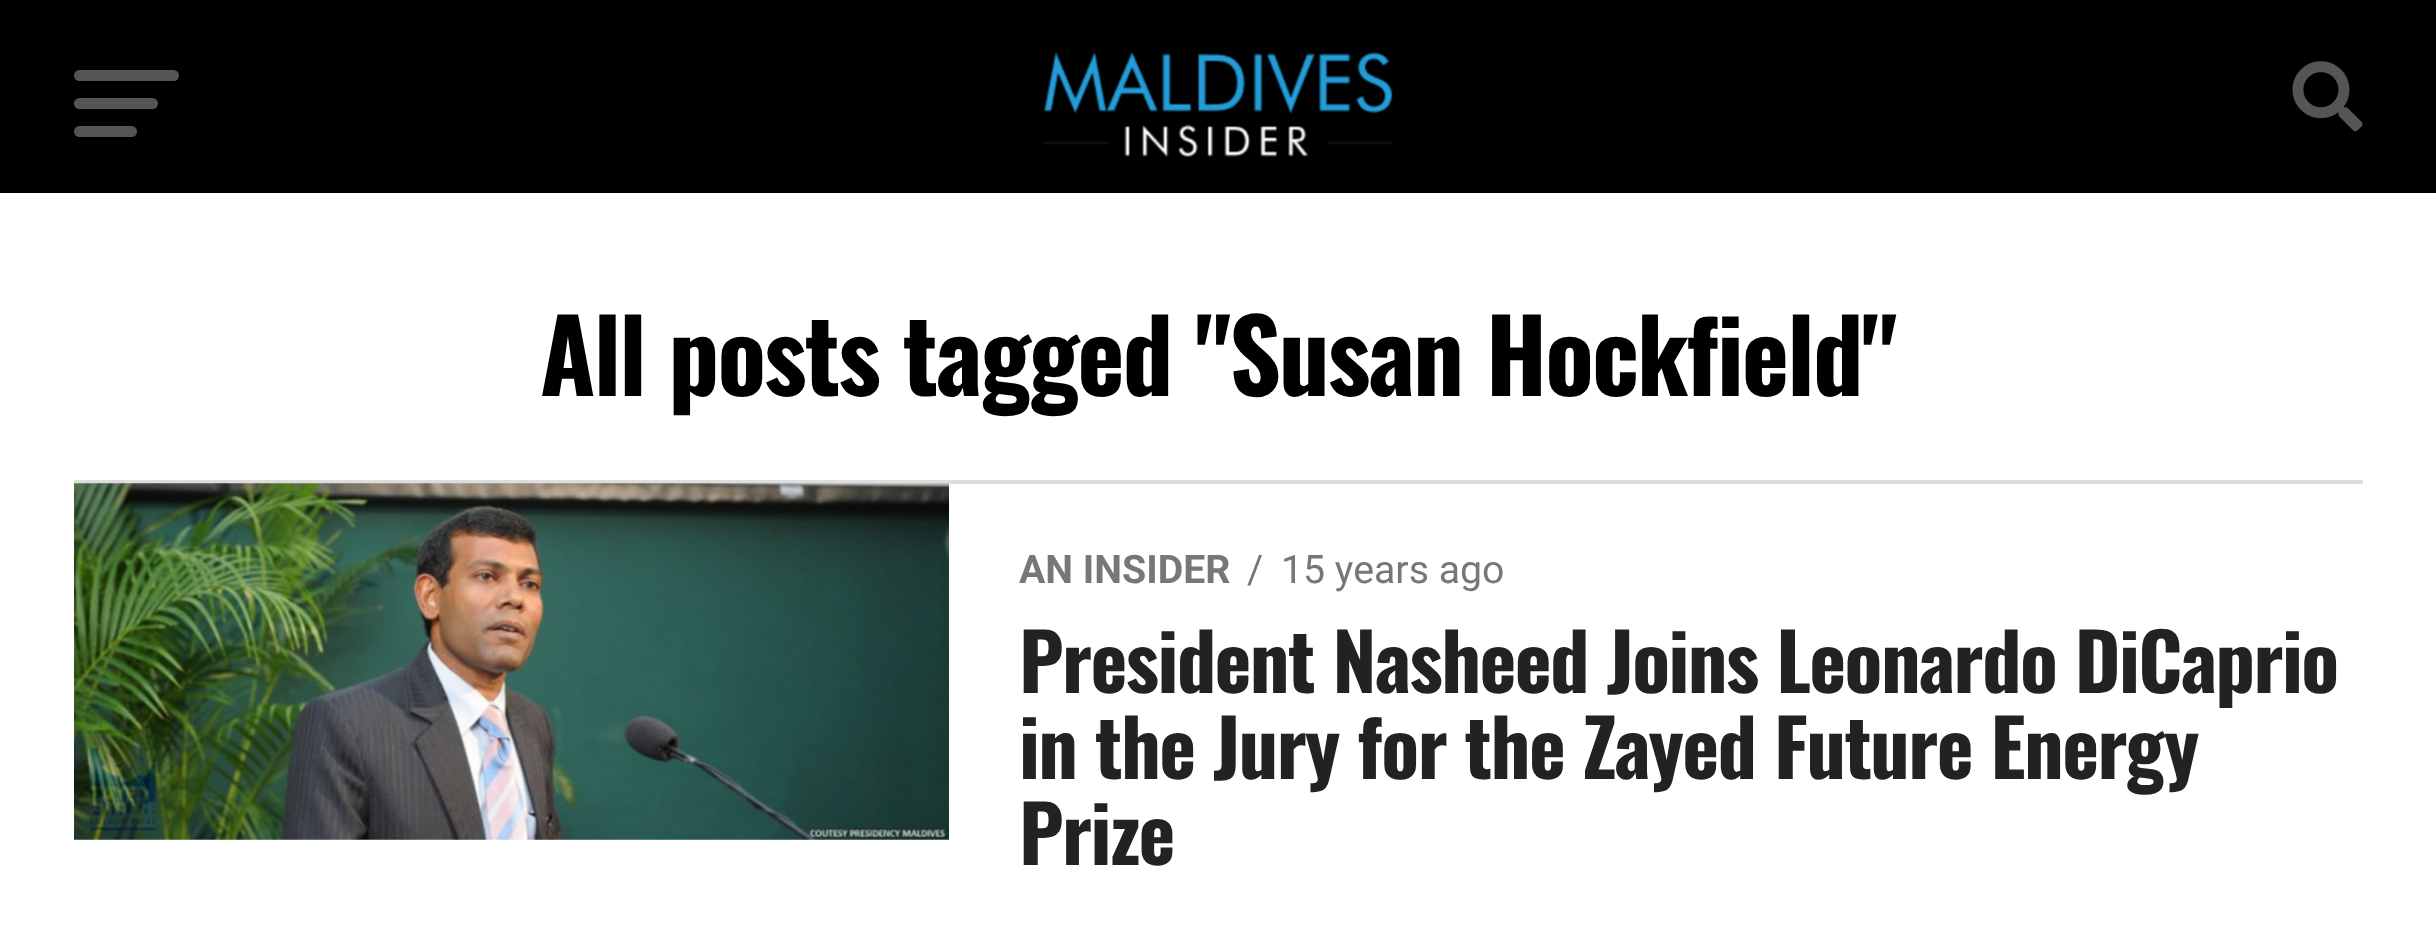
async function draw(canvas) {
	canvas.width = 2436;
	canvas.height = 935;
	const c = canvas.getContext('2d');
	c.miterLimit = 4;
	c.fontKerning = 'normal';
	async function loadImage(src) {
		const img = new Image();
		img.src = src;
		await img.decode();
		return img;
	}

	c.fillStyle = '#fff';
	c.fillRect(0, 0, 2436, 935);
	c.fillStyle = '#000';
	c.fillRect(0, 0, 2436, 193);
	c.fillStyle = '#555';
	c.beginPath();
	c.roundRect(74, 70, 105, 11, 5.5);
	c.fill();
	c.beginPath();
	c.roundRect(74, 98, 84, 11, 5.5);
	c.fill();
	c.beginPath();
	c.roundRect(74, 126, 63, 11, 5.5);
	c.fill();
	c.drawImage(await loadImage('img1.png'), 1043, 52, 350, 105);
	c.drawImage(await loadImage('img2.png'), 2292, 61, 71, 71);
	c.letterSpacing = '-2px';
	c.font = 'bold 100.75px Oswald';
	c.fillStyle = '#000';
	c.fillText('All posts tagged "Susan Hockfield"', 540, 396);
	c.fillStyle = '#ddd';
	c.fillRect(74, 480, 2289, 4);
	c.drawImage(await loadImage('img3.png'), 74, 483, 875, 357);
	c.letterSpacing = '0px';
	c.font = 'bold 39.25px Roboto';
	c.fillStyle = '#777';
	c.fillText('AN INSIDER', 1019, 583);
	c.font = '39.25px Roboto';
	c.fillText('/', 1247, 583);
	c.fillText('15 years ago', 1281, 583);
	c.letterSpacing = '-1.55px';
	c.font = 'bold 78.4px Oswald';
	c.fillStyle = '#222';
	for (const [text, x, y] of [
		['President Nasheed Joins Leonardo DiCaprio', 1019, 693],
		['in the Jury for the Zayed Future Energy', 1019, 779],
		['Prize', 1019, 865],
	]) {
		c.fillText(text, x, y);
	}
}

draw(document.querySelector('canvas'));
